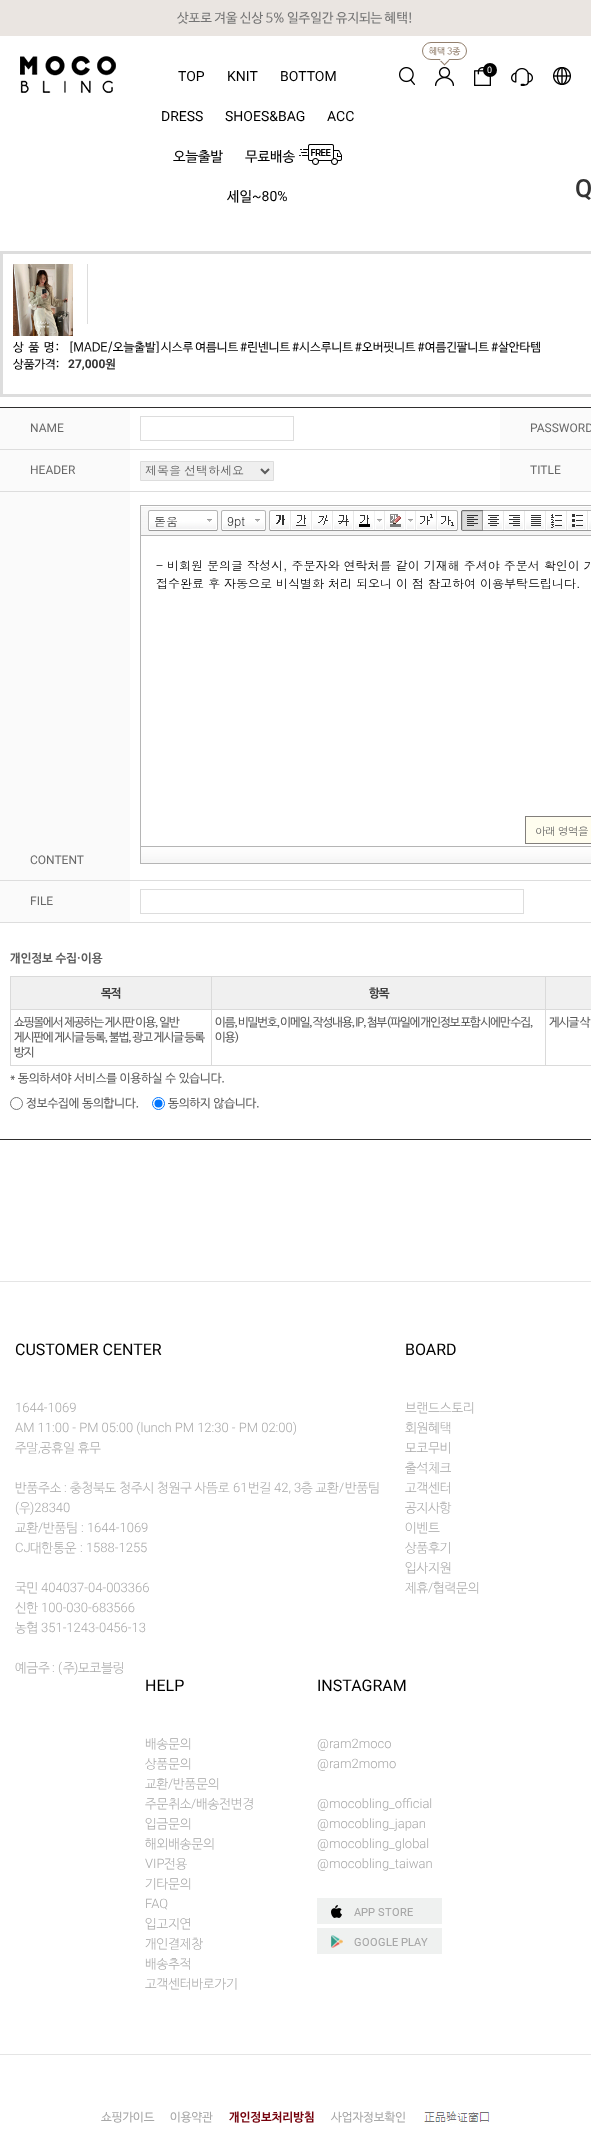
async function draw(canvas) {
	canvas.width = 591;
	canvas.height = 2143;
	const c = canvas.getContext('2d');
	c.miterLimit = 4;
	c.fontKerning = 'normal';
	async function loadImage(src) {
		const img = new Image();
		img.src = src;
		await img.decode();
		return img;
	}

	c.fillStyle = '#fff';
	c.fillRect(0, 0, 591, 2143);
	c.fillStyle = '#eae5e1';
	c.fillRect(0, 0, 591, 36);
	c.wordSpacing = '-0.5px';
	c.font = '13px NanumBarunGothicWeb';
	c.fillStyle = '#747474';
	c.fillText('삿포로 겨울 신상 5% 일주일간 유지되는 혜택!', 177, 22);
	c.drawImage(await loadImage('img1.png'), 20, 56, 96, 37);
	c.wordSpacing = '0px';
	c.font = '14px Roboto';
	c.fillStyle = '#000';
	for (const [text, x, y] of [
		['TOP', 178, 81],
		['KNIT', 227, 81],
		['BOTTOM', 280, 81],
		['DRESS', 161, 121],
		['SHOES&BAG', 225, 121],
		['ACC', 327, 121],
	]) {
		c.fillText(text, x, y);
	}
	c.font = '14px NanumBarunGothicWeb';
	c.fillText('오늘출발', 173, 161);
	c.fillText('무료배송', 245, 161);
	c.drawImage(await loadImage('img2.png'), 299, 144, 43, 21);
	c.fillText('세일', 227, 201);
	c.font = '14px Roboto';
	c.fillText('~80%', 252, 201);
	c.beginPath();
	c.roundRect(422.5, 42.5, 44, 17, 8.5);
	c.strokeStyle = '#927f6d';
	c.stroke();
	c.fillStyle = '#fff';
	c.beginPath();
	c.moveTo(444.5, 55.5);
	c.lineTo(449.5, 60.5);
	c.lineTo(444.5, 65.5);
	c.lineTo(439.5, 60.5);
	c.closePath();
	c.fill();
	c.beginPath();
	c.moveTo(444.5, 55.5);
	c.lineTo(449.5, 60.5);
	c.lineTo(448.5, 61);
	c.lineTo(444, 56.5);
	c.closePath();
	c.fill();
	c.fillStyle = '#927f6d';
	c.beginPath();
	c.moveTo(448.5, 60);
	c.lineTo(449.5, 60.5);
	c.lineTo(444.5, 65.5);
	c.lineTo(444, 64.5);
	c.closePath();
	c.fill();
	c.beginPath();
	c.moveTo(440.5, 60);
	c.lineTo(445, 64.5);
	c.lineTo(444.5, 65.5);
	c.lineTo(439.5, 60.5);
	c.closePath();
	c.fill();
	c.fillStyle = '#fff';
	c.beginPath();
	c.moveTo(444.5, 55.5);
	c.lineTo(445, 56.5);
	c.lineTo(440.5, 61);
	c.lineTo(439.5, 60.5);
	c.closePath();
	c.fill();
	c.font = '9px NanumBarunGothicWeb';
	c.fillStyle = '#927f6d';
	c.fillText('혜택 3종', 429, 54);
	c.drawImage(await loadImage('img3.png'), 435, 67, 19, 19);
	c.drawImage(await loadImage('img4.png'), 399, 67, 16, 18);
	c.drawImage(await loadImage('img5.png'), 474, 67, 17, 19);
	c.fillStyle = '#000';
	c.beginPath();
	c.arc(490, 70, 7, 0, 2 * Math.PI);
	c.fill();
	c.font = '9px Roboto';
	c.fillStyle = '#fff';
	c.fillText('0', 487, 73);
	c.drawImage(await loadImage('img6.png'), 511, 68, 22, 18);
	c.drawImage(await loadImage('img7.png'), 553, 67, 18, 18);
	c.font = '500 25px Roboto';
	c.fillStyle = '#333';
	c.fillText('Q', 575, 197);
	c.strokeStyle = '#ddd';
	c.lineWidth = 3;
	c.strokeRect(1.5, 252.5, 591, 143);
	c.fillStyle = '#ddd';
	c.fillRect(87, 264, 1, 60);
	c.drawImage(await loadImage('img8.png'), 13, 264, 60, 72);
	c.letterSpacing = '1px';
	c.font = '12px NanumBarunGothicWeb';
	c.fillStyle = '#000';
	c.fillText('상 품 명:', 13, 351);
	c.letterSpacing = '0px';
	c.wordSpacing = '-0.5px';
	c.fillText('[MADE/오늘출발]시스루 여름니트 #린넨니트 #시스루니트 #오버핏니트 #여름긴팔니트 #살안타템', 68, 351);
	c.wordSpacing = '0px';
	c.fillText('상품가격:', 13, 368);
	c.font = 'bold 12px Roboto';
	c.fillStyle = '#333';
	c.fillText('27,000', 68, 368);
	c.font = 'bold 12px NanumBarunGothicWeb';
	c.fillText('원', 105, 368);
	c.fillStyle = '#2f2e2e';
	c.fillRect(0, 407, 591, 1);
	c.fillStyle = '#fafafa';
	c.fillRect(0, 408, 130, 41);
	c.font = '12px Roboto';
	c.fillStyle = '#686868';
	c.fillText('NAME', 30, 432);
	c.lineWidth = 1;
	c.strokeRect(140.5, 416.5, 153, 24);
	c.fillStyle = '#fafafa';
	c.fillRect(500, 408, 91, 41);
	c.fillStyle = '#ddd';
	c.fillRect(0, 449, 591, 1);
	c.fillStyle = '#686868';
	c.fillText('PASSWORD', 530, 432);
	c.fillStyle = '#fafafa';
	c.fillRect(0, 450, 130, 41);
	c.fillStyle = '#686868';
	c.fillText('HEADER', 30, 474);
	c.fillStyle = '#efefef';
	c.beginPath();
	c.rect(140.5, 461.5, 133, 19);
	c.fill();
	c.stroke();
	c.beginPath();
	c.moveTo(261, 469);
	c.lineTo(265, 473);
	c.lineTo(269, 469);
	c.strokeStyle = '#5c5c5c';
	c.lineWidth = 2;
	c.stroke();
	c.wordSpacing = '-1px';
	c.font = '12px Dotum';
	c.fillStyle = '#5c5c5c';
	c.fillText('제목을 선택하세요', 145, 475);
	c.fillStyle = '#fafafa';
	c.fillRect(500, 450, 91, 41);
	c.fillStyle = '#ddd';
	c.fillRect(0, 491, 591, 1);
	c.wordSpacing = '0px';
	c.font = '12px Roboto';
	c.fillStyle = '#686868';
	c.fillText('TITLE', 530, 474);
	c.fillStyle = '#ddd';
	c.fillRect(0, 880, 591, 1);
	c.drawImage(await loadImage('img9.png'), 140, 505, 451, 359);
	c.fillStyle = '#fafafa';
	c.fillRect(0, 492, 130, 388);
	c.fillStyle = '#686868';
	c.fillText('CONTENT', 30, 864);
	c.fillStyle = '#fafafa';
	c.fillRect(0, 881, 130, 41);
	c.fillStyle = '#686868';
	c.fillText('FILE', 30, 905);
	c.strokeStyle = '#ddd';
	c.lineWidth = 1;
	c.strokeRect(140.5, 889.5, 383, 24);
	c.fillStyle = '#ddd';
	c.fillRect(0, 922, 591, 1);
	c.font = 'bold 12px NanumBarunGothicWeb';
	c.fillStyle = '#5c5c5c';
	c.fillText('개인정보 수집', 10, 962);
	c.font = 'bold 12px Roboto';
	c.fillText('·', 77, 962);
	c.font = 'bold 12px NanumBarunGothicWeb';
	c.fillText('이용', 81, 962);
	for (const [x, y, w, h, color] of [
		[10, 976, 581, 1, '#dadada'],
		[10, 976, 1, 90, '#dadada'],
		[11, 977, 200, 32, '#f0f0f0'],
		[545, 1065, 46, 1, '#dadada'],
		[545, 1009, 1, 57, '#dadada'],
		[545, 1009, 46, 1, '#dadada'],
		[545, 976, 1, 34, '#dadada'],
		[211, 1065, 335, 1, '#dadada'],
		[211, 1009, 1, 57, '#dadada'],
		[211, 1009, 335, 1, '#dadada'],
		[211, 976, 1, 34, '#dadada'],
		[10, 1009, 202, 1, '#dadada'],
	]) {
		c.fillStyle = color;
		c.fillRect(x, y, w, h);
	}
	c.letterSpacing = '-1px';
	c.fillStyle = '#3b3b3b';
	c.fillText('목적', 101, 997);
	c.fillStyle = '#f0f0f0';
	c.fillRect(212, 977, 333, 32);
	c.fillStyle = '#3b3b3b';
	c.fillText('항목', 369, 997);
	c.fillStyle = '#f0f0f0';
	c.fillRect(546, 977, 45, 32);
	c.fillStyle = '#dadada';
	c.fillRect(10, 1065, 202, 1);
	c.font = '12px NanumBarunGothicWeb';
	c.fillStyle = '#5c5c5c';
	for (const [text, x, y] of [
		['쇼핑몰에서 제공하는 게시판 이용, 일반', 14, 1026],
		['게시판에 게시글 등록, 불법, 광고 게시글 등록', 14, 1041],
		['방지', 14, 1056],
	]) {
		c.fillText(text, x, y);
	}
	c.wordSpacing = '-0.75px';
	c.fillText('이름, 비밀번호, 이메일, 작성내용, IP, 첨부(파일에 개인정보 포함 시에만 수집,', 215, 1026);
	c.wordSpacing = '0px';
	c.fillText('이용)', 215, 1041);
	c.fillText('게시글 삭', 549, 1026);
	c.letterSpacing = '0px';
	c.fillText('* 동의하셔야 서비스를 이용하실 수 있습니다.', 10, 1082);
	c.beginPath();
	c.arc(16.5, 1103.5, 6, 0, 2 * Math.PI);
	c.strokeStyle = '#767676';
	c.stroke();
	c.fillText('정보수집에 동의합니다.', 26, 1107);
	c.beginPath();
	c.arc(158.5, 1103.5, 6, 0, 2 * Math.PI);
	c.strokeStyle = '#0075ff';
	c.stroke();
	c.fillStyle = '#0075ff';
	c.beginPath();
	c.arc(158.5, 1103.5, 4, 0, 2 * Math.PI);
	c.fill();
	c.fillStyle = '#5c5c5c';
	c.fillText('동의하지 않습니다.', 168, 1107);
	c.fillStyle = '#2f2e2e';
	c.fillRect(0, 1139, 591, 1);
	c.fillStyle = '#e5e5e5';
	c.fillRect(0, 1281, 591, 1);
	c.font = '16px Roboto';
	c.fillStyle = '#000';
	c.fillText('CUSTOMER CENTER', 15, 1355);
	c.font = '300 13px Roboto';
	c.fillStyle = '#a8a8a8';
	c.fillText('1644-1069', 15, 1412);
	c.fillText('AM 11:00 - PM 05:00 (lunch PM 12:30 - PM 02:00)', 15, 1432);
	c.font = '300 13px NanumBarunGothicWeb';
	c.fillText('주말', 15, 1452);
	c.font = '300 13px Roboto';
	c.fillText(',', 38, 1452);
	c.font = '300 13px NanumBarunGothicWeb';
	c.fillText('공휴일 휴무', 40, 1452);
	c.fillText('반품주소', 15, 1492);
	c.font = '300 13px Roboto';
	c.fillText(':', 64, 1492);
	c.font = '300 13px NanumBarunGothicWeb';
	c.fillText('충청북도 청주시 청원구 사뜸로', 70, 1492);
	c.font = '300 13px Roboto';
	c.fillText('61', 233, 1492);
	c.font = '300 13px NanumBarunGothicWeb';
	c.fillText('번길', 248, 1492);
	c.font = '300 13px Roboto';
	c.fillText('42, 3', 274, 1492);
	c.font = '300 13px NanumBarunGothicWeb';
	c.fillText('층 교환', 301, 1492);
	c.font = '300 13px Roboto';
	c.fillText('/', 339, 1492);
	c.font = '300 13px NanumBarunGothicWeb';
	c.fillText('반품팀', 345, 1492);
	c.font = '300 13px Roboto';
	c.fillText('(', 15, 1512);
	c.font = '300 13px NanumBarunGothicWeb';
	c.fillText('우', 19, 1512);
	c.font = '300 13px Roboto';
	c.fillText(')28340', 30, 1512);
	c.font = '300 13px NanumBarunGothicWeb';
	c.fillText('교환', 15, 1532);
	c.font = '300 13px Roboto';
	c.fillText('/', 38, 1532);
	c.font = '300 13px NanumBarunGothicWeb';
	c.fillText('반품팀', 43, 1532);
	c.font = '300 13px Roboto';
	c.fillText(': 1644-1069', 81, 1532);
	c.fillText('CJ', 15, 1552);
	c.font = '300 13px NanumBarunGothicWeb';
	c.fillText('대한통운', 30, 1552);
	c.font = '300 13px Roboto';
	c.fillText(': 1588-1255', 80, 1552);
	c.font = '300 13px NanumBarunGothicWeb';
	c.fillText('국민', 15, 1592);
	c.font = '300 13px Roboto';
	c.fillText('404037-04-003366', 41, 1592);
	c.font = '300 13px NanumBarunGothicWeb';
	c.fillText('신한', 15, 1612);
	c.font = '300 13px Roboto';
	c.fillText('100-030-683566', 41, 1612);
	c.font = '300 13px NanumBarunGothicWeb';
	c.fillText('농협', 15, 1632);
	c.font = '300 13px Roboto';
	c.fillText('351-1243-0456-13', 41, 1632);
	c.font = '300 13px NanumBarunGothicWeb';
	c.fillText('예금주', 15, 1672);
	c.font = '300 13px Roboto';
	c.fillText(': (', 52, 1672);
	c.font = '300 13px NanumBarunGothicWeb';
	c.fillText('주', 63, 1672);
	c.font = '300 13px Roboto';
	c.fillText(')', 74, 1672);
	c.font = '300 13px NanumBarunGothicWeb';
	c.fillText('모코블링', 78, 1672);
	c.font = '16px Roboto';
	c.fillStyle = '#000';
	c.fillText('BOARD', 405, 1355);
	c.font = '300 13px NanumBarunGothicWeb';
	c.fillStyle = '#a8a8a8';
	for (const [text, x, y] of [
		['브랜드스토리', 405, 1412],
		['회원혜택', 405, 1432],
		['모코무비', 405, 1452],
		['출석체크', 405, 1472],
		['고객센터', 405, 1492],
		['공지사항', 405, 1512],
		['이벤트', 405, 1532],
		['상품후기', 405, 1552],
		['입사지원', 405, 1572],
		['제휴', 405, 1592],
	]) {
		c.fillText(text, x, y);
	}
	c.font = '300 13px Roboto';
	c.fillText('/', 428, 1592);
	c.font = '300 13px NanumBarunGothicWeb';
	c.fillText('협력문의', 433, 1592);
	c.font = '16px Roboto';
	c.fillStyle = '#000';
	c.fillText('HELP', 145, 1691);
	c.font = '300 13px NanumBarunGothicWeb';
	c.fillStyle = '#a8a8a8';
	for (const [text, x, y] of [
		['배송문의', 145, 1748],
		['상품문의', 145, 1768],
		['교환', 145, 1788],
	]) {
		c.fillText(text, x, y);
	}
	c.font = '300 13px Roboto';
	c.fillText('/', 168, 1788);
	c.font = '300 13px NanumBarunGothicWeb';
	c.fillText('반품문의', 173, 1788);
	c.fillText('주문취소', 145, 1808);
	c.font = '300 13px Roboto';
	c.fillText('/', 191, 1808);
	c.font = '300 13px NanumBarunGothicWeb';
	for (const [text, x, y] of [
		['배송전변경', 196, 1808],
		['입금문의', 145, 1828],
		['해외배송문의', 145, 1848],
	]) {
		c.fillText(text, x, y);
	}
	c.font = '300 13px Roboto';
	c.fillText('VIP', 145, 1868);
	c.font = '300 13px NanumBarunGothicWeb';
	c.fillText('전용', 164, 1868);
	c.fillText('기타문의', 145, 1888);
	c.font = '300 13px Roboto';
	c.fillText('FAQ', 145, 1908);
	c.font = '300 13px NanumBarunGothicWeb';
	for (const [text, x, y] of [
		['입고지연', 145, 1928],
		['개인결제창', 145, 1948],
		['배송추적', 145, 1968],
		['고객센터바로가기', 145, 1988],
	]) {
		c.fillText(text, x, y);
	}
	c.font = '16px Roboto';
	c.fillStyle = '#000';
	c.fillText('INSTAGRAM', 317, 1691);
	c.font = '300 13px Roboto';
	c.fillStyle = '#a8a8a8';
	for (const [text, x, y] of [
		['@ram2moco', 317, 1748],
		['@ram2momo', 317, 1768],
		['@mocobling_official', 317, 1808],
		['@mocobling_japan', 317, 1828],
		['@mocobling_global', 317, 1848],
		['@mocobling_taiwan', 317, 1868],
	]) {
		c.fillText(text, x, y);
	}
	c.drawImage(await loadImage('img10.png'), 317, 1898, 125, 26);
	c.drawImage(await loadImage('img11.png'), 317, 1928, 125, 26);
	c.fillStyle = '#e5e5e5';
	c.fillRect(0, 2054, 591, 1);
	c.font = '12px NanumBarunGothicWeb';
	c.fillStyle = '#a8a8a8';
	c.fillText('쇼핑가이드', 101, 2121);
	c.fillText('이용약관', 170, 2121);
	c.font = 'bold 12px NanumBarunGothicWeb';
	c.fillStyle = '#75000b';
	c.fillText('개인정보처리방침', 229, 2121);
	c.font = '12px NanumBarunGothicWeb';
	c.fillStyle = '#a8a8a8';
	c.fillText('사업자정보확인', 331, 2121);
	c.drawImage(await loadImage('img12.png'), 424, 2110, 66, 14);
}

draw(document.querySelector('canvas'));
